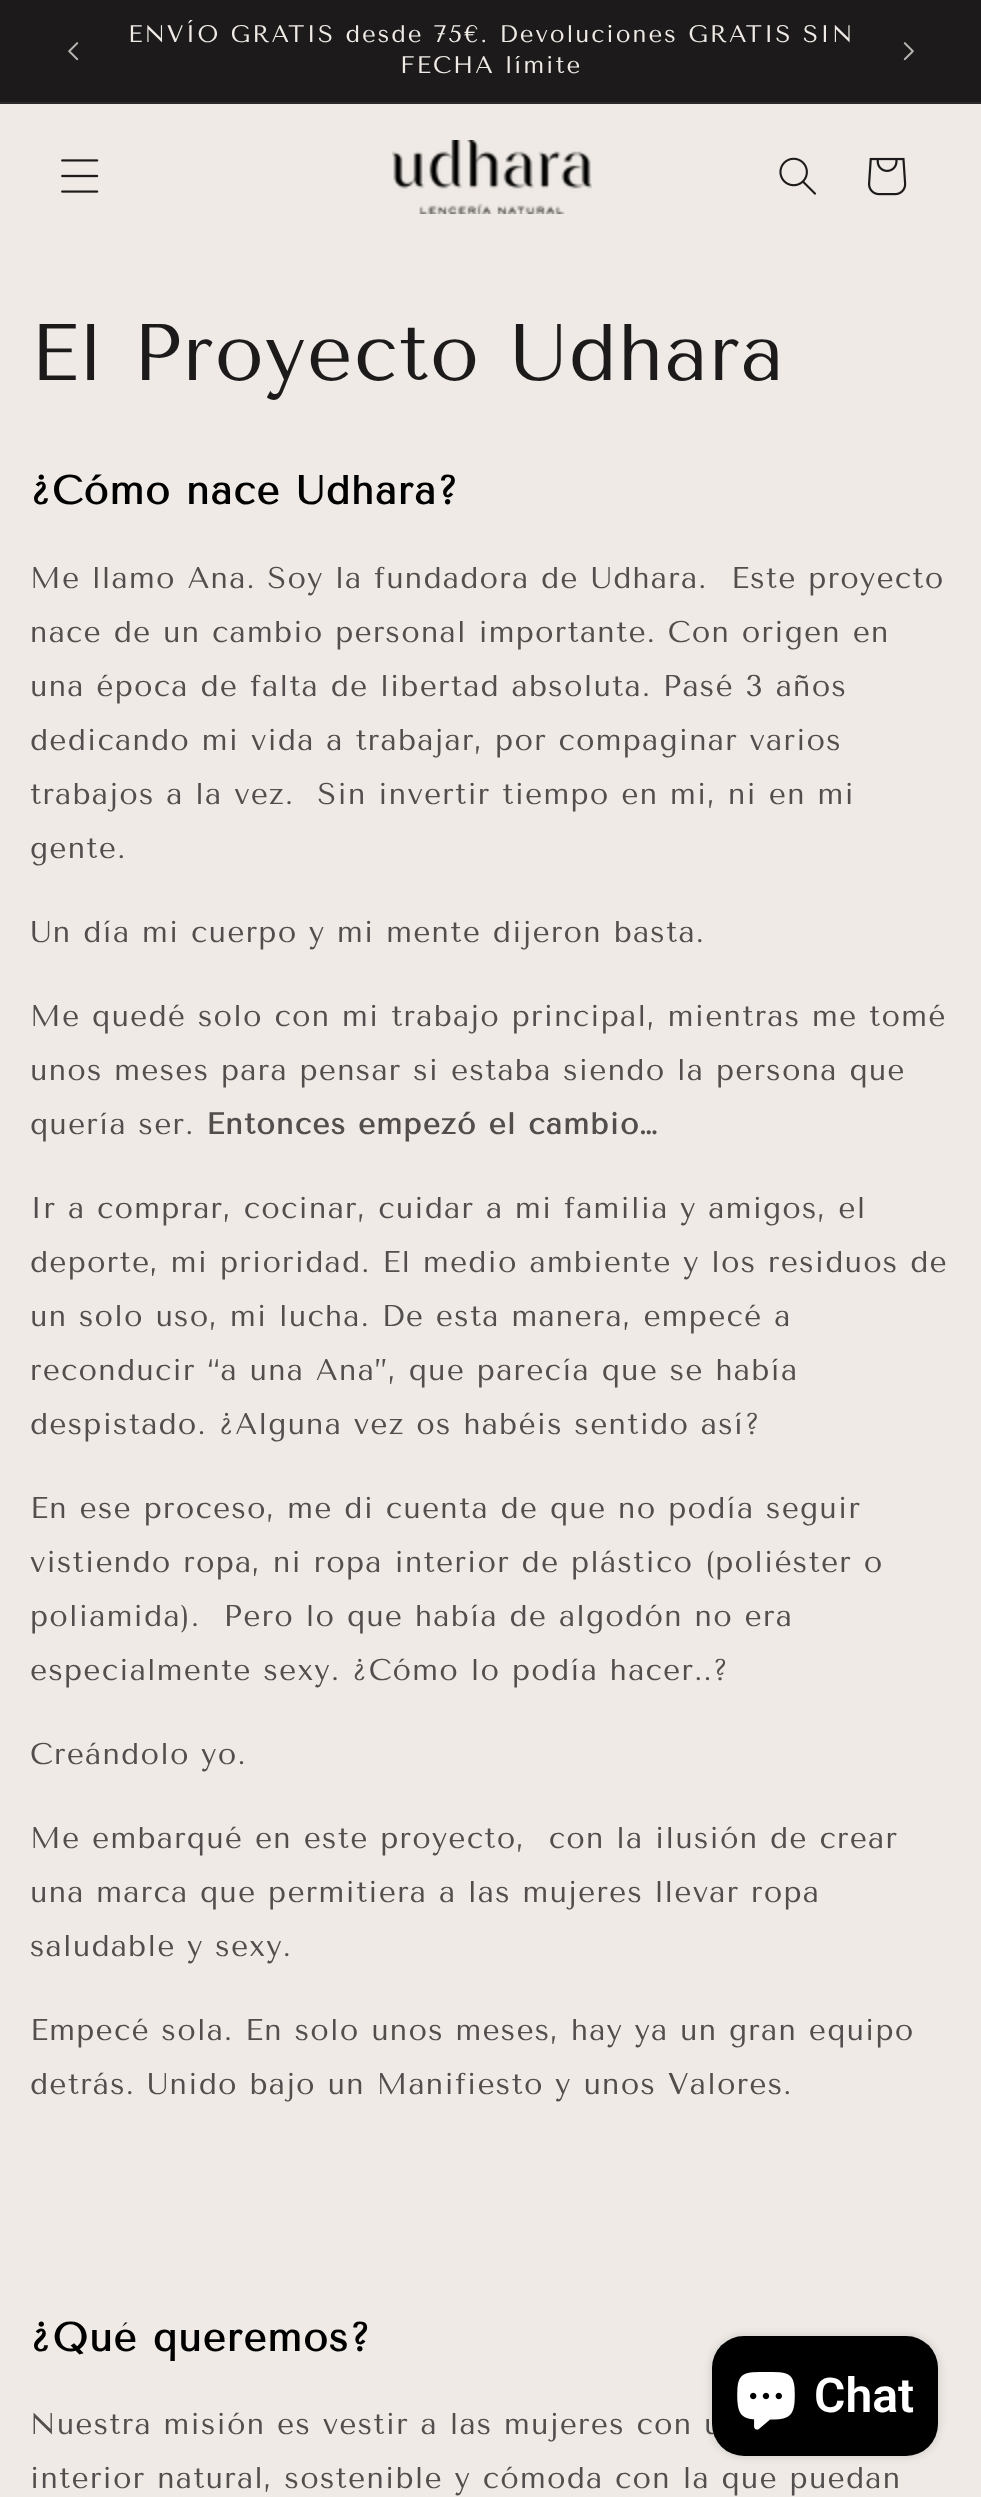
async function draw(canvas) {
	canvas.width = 981;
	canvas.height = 2497;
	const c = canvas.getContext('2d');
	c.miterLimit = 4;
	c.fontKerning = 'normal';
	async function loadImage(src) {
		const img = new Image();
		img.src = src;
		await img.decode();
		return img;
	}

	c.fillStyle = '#efeae5';
	c.fillRect(0, 0, 981, 2497);
	c.fillStyle = '#1c1a1a';
	c.fillRect(0, 0, 981, 102);
	c.fillStyle = '#2d2b2a';
	c.fillRect(0, 102, 981, 2);
	c.drawImage(await loadImage('img1.png'), 68, 42, 11, 19);
	c.letterSpacing = '2px';
	c.font = '24px Tenor Sans';
	c.fillStyle = '#efeae5';
	c.fillText('ENVÍO GRATIS desde 75€. Devoluciones GRATIS SIN', 128, 42);
	c.fillText('FECHA límite', 400, 73);
	c.drawImage(await loadImage('img2.png'), 903, 42, 11, 19);
	c.drawImage(await loadImage('img3.png'), 61, 159, 38, 34);
	c.drawImage(await loadImage('img4.png'), 392, 140, 200, 74);
	c.drawImage(await loadImage('img5.png'), 779, 157, 37, 38);
	c.drawImage(await loadImage('img6.png'), 868, 157, 39, 39);
	c.letterSpacing = '1.2px';
	c.font = '80px Tenor Sans';
	c.fillStyle = '#1c1a1a';
	c.fillText('El Proyecto Udhara', 30, 380);
	c.font = 'bold 40px Tenor Sans';
	c.fillStyle = '#000';
	c.fillText('¿Cómo nace Udhara?', 30, 504);
	c.font = '30px Tenor Sans';
	c.fillStyle = '#514e4d';
	for (const [text, x, y] of [
		['Me llamo Ana. Soy la fundadora de Udhara.  Este proyecto', 30, 588],
		['nace de un cambio personal importante. Con origen en', 30, 642],
		['una época de falta de libertad absoluta. Pasé 3 años', 30, 696],
		['dedicando mi vida a trabajar, por compaginar varios', 30, 750],
		['trabajos a la vez.  Sin invertir tiempo en mi, ni en mi', 30, 804],
		['gente.', 30, 858],
		['Un día mi cuerpo y mi mente dijeron basta.', 30, 942],
		['Me quedé solo con mi trabajo principal, mientras me tomé', 30, 1026],
		['unos meses para pensar si estaba siendo la persona que', 30, 1080],
		['quería ser.', 30, 1134],
	]) {
		c.fillText(text, x, y);
	}
	c.font = 'bold 30px Tenor Sans';
	c.fillText('Entonces empezó el cambio…', 206, 1134);
	c.font = '30px Tenor Sans';
	for (const [text, x, y] of [
		['Ir a comprar, cocinar, cuidar a mi familia y amigos, el', 30, 1218],
		['deporte, mi prioridad. El medio ambiente y los residuos de', 30, 1272],
		['un solo uso, mi lucha. De esta manera, empecé a', 30, 1326],
		['reconducir “a una Ana”, que parecía que se había', 30, 1380],
		['despistado. ¿Alguna vez os habéis sentido así?', 30, 1434],
		['En ese proceso, me di cuenta de que no podía seguir', 30, 1518],
		['vistiendo ropa, ni ropa interior de plástico (poliéster o', 30, 1572],
		['poliamida).  Pero lo que había de algodón no era', 30, 1626],
		['especialmente sexy. ¿Cómo lo podía hacer..?', 30, 1680],
		['Creándolo yo.', 30, 1764],
		['Me embarqué en este proyecto,  con la ilusión de crear', 30, 1848],
		['una marca que permitiera a las mujeres llevar ropa', 30, 1902],
		['saludable y sexy.', 30, 1956],
		['Empecé sola. En solo unos meses, hay ya un gran equipo', 30, 2040],
		['detrás. Unido bajo un Manifiesto y unos Valores.', 30, 2094],
	]) {
		c.fillText(text, x, y);
	}
	c.font = 'bold 40px Tenor Sans';
	c.fillStyle = '#000';
	c.fillText('¿Qué queremos?', 30, 2351);
	c.font = '30px Tenor Sans';
	c.fillStyle = '#514e4d';
	c.fillText('Nuestra misión es vestir a las mujeres con u', 30, 2434);
	c.fillText('interior natural, sostenible y cómoda con la que puedan', 30, 2488);
	c.fillStyle = '#00000026';
	c.filter = 'blur(5px)';
	c.beginPath();
	c.roundRect(712, 2336, 226, 120, 32);
	c.fill();
	c.filter = 'none';
	c.fillStyle = '#000';
	c.beginPath();
	c.roundRect(712, 2336, 226, 120, 32);
	c.fill();
	c.drawImage(await loadImage('img7.png'), 737, 2372, 58, 58);
	c.letterSpacing = '0px';
	c.font = '600 48px Roboto';
	c.fillStyle = '#fff';
	c.fillText('Chat', 814, 2412);
}

draw(document.querySelector('canvas'));
